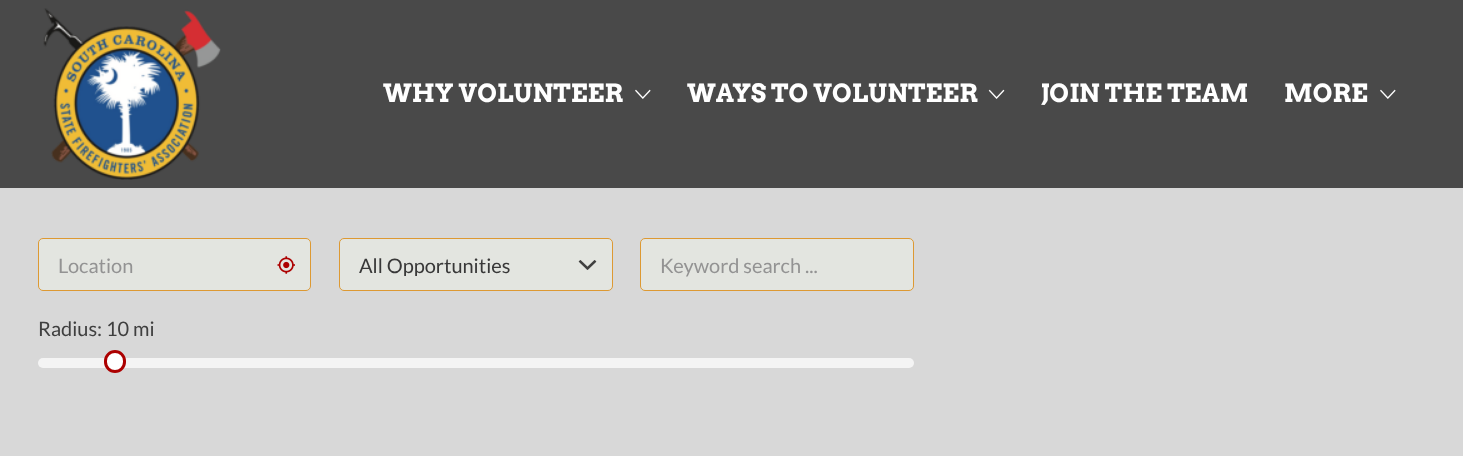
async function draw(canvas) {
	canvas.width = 1463;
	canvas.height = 456;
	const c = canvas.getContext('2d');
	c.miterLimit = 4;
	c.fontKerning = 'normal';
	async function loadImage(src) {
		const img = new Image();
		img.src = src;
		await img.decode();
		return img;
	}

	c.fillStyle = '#d8d8d8';
	c.fillRect(0, 0, 1463, 456);
	c.fillStyle = '#494949';
	c.fillRect(0, 0, 1463, 188);
	c.drawImage(await loadImage('img1.png'), 43, 8, 178, 172);
	c.font = 'bold 25px Arvo';
	c.fillStyle = '#fff';
	c.fillText('WHY VOLUNTEER', 383, 102);
	c.drawImage(await loadImage('img2.png'), 635, 89, 16, 10);
	c.fillText('WAYS TO VOLUNTEER', 687, 102);
	c.drawImage(await loadImage('img3.png'), 988, 89, 17, 10);
	c.fillText('JOIN THE TEAM', 1041, 102);
	c.fillText('MORE', 1284, 102);
	c.drawImage(await loadImage('img2.png'), 1380, 89, 16, 10);
	c.fillStyle = '#e3e5e0';
	c.beginPath();
	c.roundRect(38.5, 238.5, 272, 52, 4.5);
	c.fill();
	c.strokeStyle = '#d93';
	c.stroke();
	c.font = '20px Lato';
	c.fillStyle = '#939393';
	c.fillText('Location', 58, 273);
	c.drawImage(await loadImage('img4.png'), 277, 256, 18, 18);
	c.fillStyle = '#e3e5e0';
	c.beginPath();
	c.roundRect(339.5, 238.5, 273, 52, 4.5);
	c.fill();
	c.stroke();
	c.save();
	c.beginPath();
	c.rect(359, 253, 202, 23);
	c.clip();
	c.fillStyle = '#383838';
	c.fillText('All Opportunities', 359, 273);
	c.restore();
	c.drawImage(await loadImage('img5.png'), 578, 260, 19, 10);
	c.beginPath();
	c.roundRect(640.5, 238.5, 273, 52, 4.5);
	c.fill();
	c.stroke();
	c.fillStyle = '#939393';
	c.fillText('Keyword search ...', 660, 273);
	c.fillStyle = '#3f3f3f';
	c.fillText('Radius: 10 mi', 38, 336);
	c.fillStyle = '#f4f4f4';
	c.beginPath();
	c.roundRect(38, 358, 876, 10, 5);
	c.fill();
	c.fillStyle = '#fff';
	c.beginPath();
	c.roundRect(105.5, 351.5, 19, 20, 9.5);
	c.fill();
	c.strokeStyle = '#ac0000';
	c.lineWidth = 3;
	c.stroke();
}

draw(document.querySelector('canvas'));
